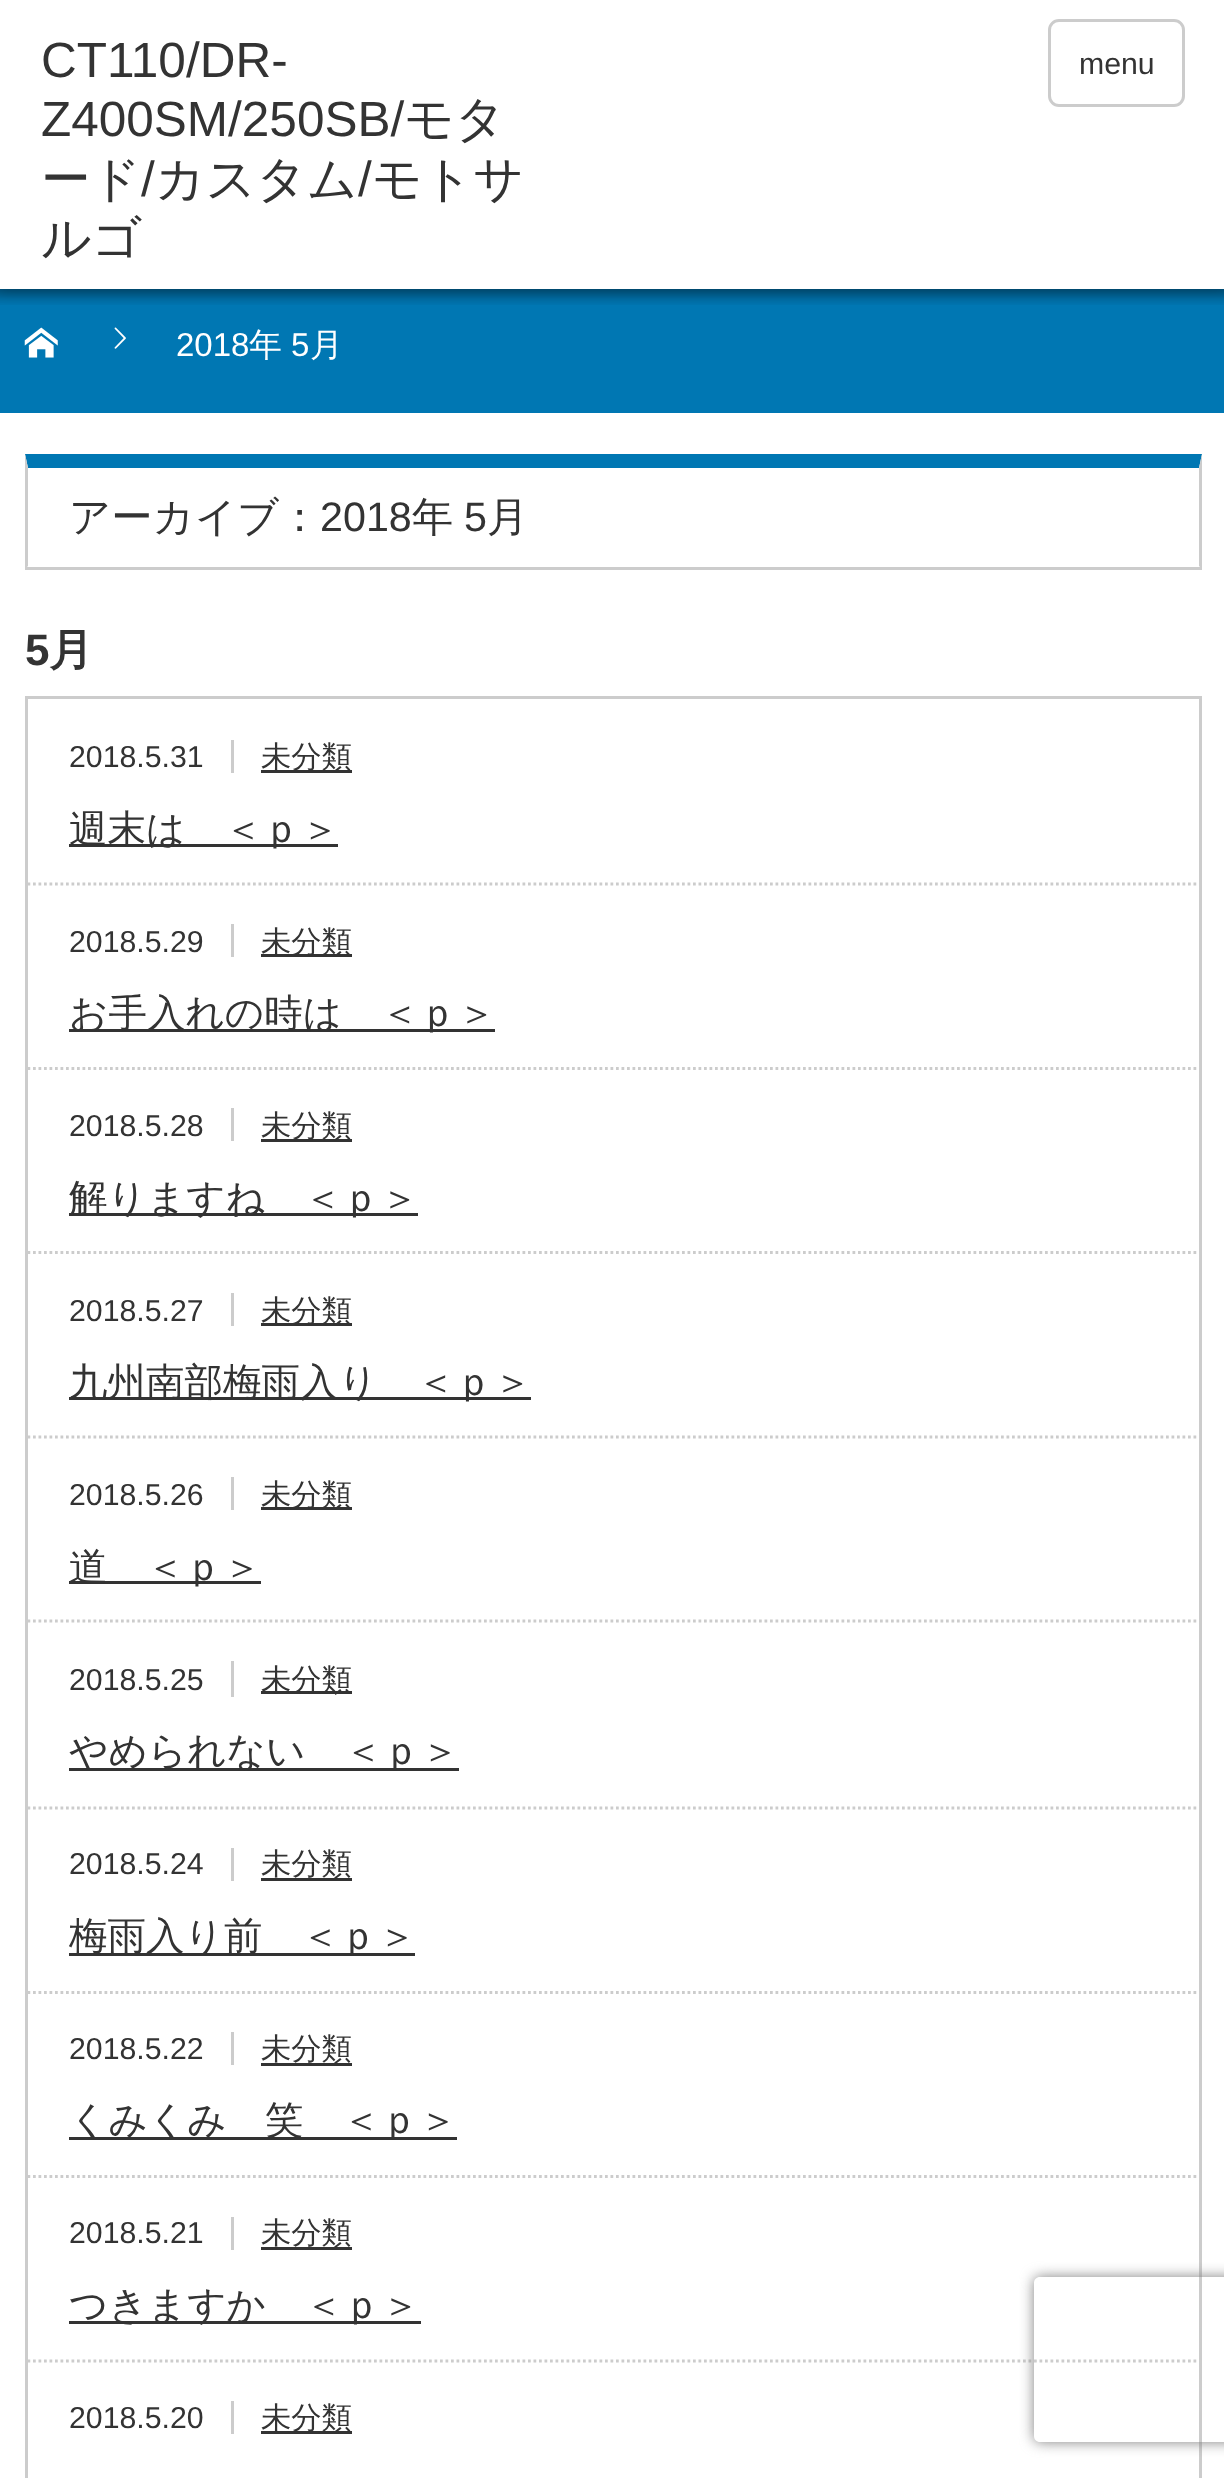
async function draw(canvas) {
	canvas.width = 1224;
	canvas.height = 2478;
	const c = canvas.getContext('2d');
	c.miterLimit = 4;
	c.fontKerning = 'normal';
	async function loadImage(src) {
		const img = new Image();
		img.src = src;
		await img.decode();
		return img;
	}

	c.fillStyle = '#fff';
	c.fillRect(0, 0, 1224, 2478);
	c.fillStyle = '#0077b3';
	c.fillRect(0, 289, 1224, 124);
	c.drawImage(await loadImage('img1.png'), 0, 289, 1224, 16);
	c.fillStyle = '#0000004d';
	c.filter = 'blur(7px)';
	c.beginPath();
	c.rect(0, 0, 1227, 289);
	c.fill();
	c.filter = 'none';
	c.fillStyle = '#fff';
	c.fillRect(0, 0, 1224, 289);
	c.font = '49.5px Liberation Sans';
	c.fillStyle = '#333';
	c.fillText('CT110/DR-', 41, 77);
	c.fillText('Z400SM/250SB/', 41, 136);
	c.font = '500 49.5px WenQuanYi Zen Hei';
	c.fillText('モタ', 404, 136);
	c.fillText('ード', 41, 196);
	c.font = '49.5px Liberation Sans';
	c.fillText('/', 141, 196);
	c.font = '500 49.5px WenQuanYi Zen Hei';
	c.fillText('カスタム', 155, 196);
	c.font = '49.5px Liberation Sans';
	c.fillText('/', 358, 196);
	c.font = '500 49.5px WenQuanYi Zen Hei';
	c.fillText('モトサ', 372, 196);
	c.fillText('ルゴ', 41, 255);
	c.beginPath();
	c.roundRect(1049.5, 20.5, 134, 85, 9.5);
	c.strokeStyle = '#ccc';
	c.lineWidth = 3;
	c.stroke();
	c.font = '30.25px Liberation Sans';
	c.fillText('menu', 1079, 74);
	c.drawImage(await loadImage('img2.png'), 24, 327, 34, 31);
	c.drawImage(await loadImage('img3.png'), 114, 327, 12, 22);
	c.font = '33px Liberation Sans';
	c.fillStyle = '#fff';
	c.fillText('2018', 176, 356);
	c.font = '500 33px WenQuanYi Zen Hei';
	c.fillText('年', 249, 356);
	c.font = '33px Liberation Sans';
	c.fillText('5', 291, 356);
	c.font = '500 33px WenQuanYi Zen Hei';
	c.fillText('月', 310, 356);
	c.fillStyle = '#0077b3';
	c.beginPath();
	c.moveTo(25, 454);
	c.lineTo(1202, 454);
	c.lineTo(1199, 468);
	c.lineTo(28, 468);
	c.closePath();
	c.fill();
	c.fillStyle = '#ccc';
	c.beginPath();
	c.moveTo(1202, 454);
	c.lineTo(1202, 569);
	c.lineTo(1199, 566);
	c.lineTo(1199, 468);
	c.closePath();
	c.fill();
	c.fillRect(25, 567, 1177, 3);
	c.beginPath();
	c.moveTo(25, 569);
	c.lineTo(25, 454);
	c.lineTo(28, 468);
	c.lineTo(28, 566);
	c.closePath();
	c.fill();
	c.font = '500 41.25px WenQuanYi Zen Hei';
	c.fillStyle = '#333';
	c.fillText('アーカイブ：', 69, 531);
	c.font = '41.25px Liberation Sans';
	c.fillText('2018', 320, 531);
	c.font = '500 41.25px WenQuanYi Zen Hei';
	c.fillText('年', 412, 531);
	c.font = '41.25px Liberation Sans';
	c.fillText('5', 464, 531);
	c.font = '500 41.25px WenQuanYi Zen Hei';
	c.fillText('月', 487, 531);
	c.font = 'bold 44px Liberation Sans';
	c.fillText('5', 25, 665);
	c.font = 'bold 44px WenQuanYi Zen Hei';
	c.fillText('月', 49, 665);
	c.strokeRect(26.5, 697.5, 1174, 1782);
	c.save();
	c.beginPath();
	c.rect(28, 699, 1171, 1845);
	c.clip();
	c.beginPath();
	c.moveTo(27.5, 884);
	c.lineTo(1199, 884);
	c.lineWidth = 2.8;
	c.setLineDash([2.75, 2.75]);
	c.stroke();
	c.restore();
	c.fillStyle = '#ccc';
	c.fillRect(231, 740, 3, 33);
	c.font = '30.25px Liberation Sans';
	c.fillStyle = '#333';
	c.fillText('2018.5.31', 69, 767);
	c.fillRect(261, 770, 91, 3);
	c.font = '500 30.25px WenQuanYi Zen Hei';
	c.fillText('未分類', 261, 767);
	c.fillRect(69, 844, 269, 3);
	c.font = '500 38.5px WenQuanYi Zen Hei';
	c.fillText('週末は　＜ｐ＞', 69, 842);
	c.save();
	c.beginPath();
	c.rect(28, 699, 1171, 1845);
	c.clip();
	c.beginPath();
	c.moveTo(27.5, 1068.5);
	c.lineTo(1199, 1068.5);
	c.lineWidth = 2.8;
	c.setLineDash([2.75, 2.75]);
	c.stroke();
	c.restore();
	c.fillStyle = '#ccc';
	c.fillRect(231, 924, 3, 33);
	c.font = '30.25px Liberation Sans';
	c.fillStyle = '#333';
	c.fillText('2018.5.29', 69, 952);
	c.fillRect(261, 954, 91, 3);
	c.font = '500 30.25px WenQuanYi Zen Hei';
	c.fillText('未分類', 261, 952);
	c.fillRect(69, 1029, 426, 3);
	c.font = '500 38.5px WenQuanYi Zen Hei';
	c.fillText('お手入れの時は　＜ｐ＞', 69, 1026);
	c.save();
	c.beginPath();
	c.rect(28, 699, 1171, 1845);
	c.clip();
	c.beginPath();
	c.moveTo(27.5, 1252.5);
	c.lineTo(1199, 1252.5);
	c.lineWidth = 2.8;
	c.setLineDash([2.75, 2.75]);
	c.stroke();
	c.restore();
	c.fillStyle = '#ccc';
	c.fillRect(231, 1108, 3, 33);
	c.font = '30.25px Liberation Sans';
	c.fillStyle = '#333';
	c.fillText('2018.5.28', 69, 1136);
	c.fillRect(261, 1139, 91, 3);
	c.font = '500 30.25px WenQuanYi Zen Hei';
	c.fillText('未分類', 261, 1136);
	c.fillRect(69, 1213, 349, 3);
	c.font = '500 38.5px WenQuanYi Zen Hei';
	c.fillText('解りますね　＜ｐ＞', 69, 1211);
	c.save();
	c.beginPath();
	c.rect(28, 699, 1171, 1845);
	c.clip();
	c.beginPath();
	c.moveTo(27.5, 1437);
	c.lineTo(1199, 1437);
	c.lineWidth = 2.8;
	c.setLineDash([2.75, 2.75]);
	c.stroke();
	c.restore();
	c.fillStyle = '#ccc';
	c.fillRect(231, 1293, 3, 33);
	c.font = '30.25px Liberation Sans';
	c.fillStyle = '#333';
	c.fillText('2018.5.27', 69, 1321);
	c.fillRect(261, 1323, 91, 3);
	c.font = '500 30.25px WenQuanYi Zen Hei';
	c.fillText('未分類', 261, 1321);
	c.fillRect(69, 1397, 462, 3);
	c.font = '500 38.5px WenQuanYi Zen Hei';
	c.fillText('九州南部梅雨入り　＜ｐ＞', 69, 1395);
	c.save();
	c.beginPath();
	c.rect(28, 699, 1171, 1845);
	c.clip();
	c.beginPath();
	c.moveTo(27.5, 1621);
	c.lineTo(1199, 1621);
	c.lineWidth = 2.8;
	c.setLineDash([2.75, 2.75]);
	c.stroke();
	c.restore();
	c.fillStyle = '#ccc';
	c.fillRect(231, 1477, 3, 33);
	c.font = '30.25px Liberation Sans';
	c.fillStyle = '#333';
	c.fillText('2018.5.26', 69, 1505);
	c.fillRect(261, 1507, 91, 3);
	c.font = '500 30.25px WenQuanYi Zen Hei';
	c.fillText('未分類', 261, 1505);
	c.fillRect(69, 1581, 192, 3);
	c.font = '500 38.5px WenQuanYi Zen Hei';
	c.fillText('道　＜ｐ＞', 69, 1580);
	c.save();
	c.beginPath();
	c.rect(28, 699, 1171, 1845);
	c.clip();
	c.beginPath();
	c.moveTo(27.5, 1808);
	c.lineTo(1199, 1808);
	c.lineWidth = 2.8;
	c.setLineDash([2.75, 2.75]);
	c.stroke();
	c.restore();
	c.fillStyle = '#ccc';
	c.fillRect(231, 1661, 3, 36);
	c.font = '30.25px Liberation Sans';
	c.fillStyle = '#333';
	c.fillText('2018.5.25', 69, 1690);
	c.fillRect(261, 1691, 91, 3);
	c.font = '500 30.25px WenQuanYi Zen Hei';
	c.fillText('未分類', 261, 1690);
	c.fillRect(69, 1768, 390, 3);
	c.font = '500 38.5px WenQuanYi Zen Hei';
	c.fillText('やめられない　＜ｐ＞', 69, 1764);
	c.save();
	c.beginPath();
	c.rect(28, 699, 1171, 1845);
	c.clip();
	c.beginPath();
	c.moveTo(27.5, 1992.5);
	c.lineTo(1199, 1992.5);
	c.lineWidth = 2.8;
	c.setLineDash([2.75, 2.75]);
	c.stroke();
	c.restore();
	c.fillStyle = '#ccc';
	c.fillRect(231, 1848, 3, 33);
	c.font = '30.25px Liberation Sans';
	c.fillStyle = '#333';
	c.fillText('2018.5.24', 69, 1874);
	c.fillRect(261, 1878, 91, 3);
	c.font = '500 30.25px WenQuanYi Zen Hei';
	c.fillText('未分類', 261, 1874);
	c.fillRect(69, 1953, 346, 3);
	c.font = '500 38.5px WenQuanYi Zen Hei';
	c.fillText('梅雨入り前　＜ｐ＞', 69, 1949);
	c.save();
	c.beginPath();
	c.rect(28, 699, 1171, 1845);
	c.clip();
	c.beginPath();
	c.moveTo(27.5, 2176.5);
	c.lineTo(1199, 2176.5);
	c.lineWidth = 2.8;
	c.setLineDash([2.75, 2.75]);
	c.stroke();
	c.restore();
	c.fillStyle = '#ccc';
	c.fillRect(231, 2032, 3, 33);
	c.font = '30.25px Liberation Sans';
	c.fillStyle = '#333';
	c.fillText('2018.5.22', 69, 2059);
	c.fillRect(261, 2063, 91, 3);
	c.font = '500 30.25px WenQuanYi Zen Hei';
	c.fillText('未分類', 261, 2059);
	c.fillRect(69, 2137, 388, 3);
	c.font = '500 38.5px WenQuanYi Zen Hei';
	c.fillText('くみくみ　笑　＜ｐ＞', 69, 2133);
	c.save();
	c.beginPath();
	c.rect(28, 699, 1171, 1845);
	c.clip();
	c.beginPath();
	c.moveTo(27.5, 2361);
	c.lineTo(1199, 2361);
	c.lineWidth = 2.8;
	c.setLineDash([2.75, 2.75]);
	c.stroke();
	c.restore();
	c.fillStyle = '#ccc';
	c.fillRect(231, 2217, 3, 33);
	c.font = '30.25px Liberation Sans';
	c.fillStyle = '#333';
	c.fillText('2018.5.21', 69, 2243);
	c.fillRect(261, 2247, 91, 3);
	c.font = '500 30.25px WenQuanYi Zen Hei';
	c.fillText('未分類', 261, 2243);
	c.fillRect(69, 2321, 352, 3);
	c.font = '500 38.5px WenQuanYi Zen Hei';
	c.fillText('つきますか　＜ｐ＞', 69, 2318);
	c.fillStyle = '#ccc';
	c.fillRect(231, 2401, 3, 33);
	c.font = '30.25px Liberation Sans';
	c.fillStyle = '#333';
	c.fillText('2018.5.20', 69, 2428);
	c.fillRect(261, 2431, 91, 3);
	c.font = '500 30.25px WenQuanYi Zen Hei';
	c.fillText('未分類', 261, 2428);
	c.save();
	c.beginPath();
	c.moveTo(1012, 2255);
	c.lineTo(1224, 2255);
	c.lineTo(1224, 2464);
	c.lineTo(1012, 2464);
	c.closePath();
	c.moveTo(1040, 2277);
	c.lineTo(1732, 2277);
	c.bezierCurveTo(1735.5, 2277, 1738, 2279.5, 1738, 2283);
	c.lineTo(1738, 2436);
	c.bezierCurveTo(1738, 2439.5, 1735.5, 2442, 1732, 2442);
	c.lineTo(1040, 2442);
	c.bezierCurveTo(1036.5, 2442, 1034, 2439.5, 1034, 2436);
	c.lineTo(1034, 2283);
	c.bezierCurveTo(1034, 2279.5, 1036.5, 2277, 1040, 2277);
	c.closePath();
	c.clip('evenodd');
	c.fillStyle = '#808080';
	c.filter = 'blur(7px)';
	c.beginPath();
	c.roundRect(1034, 2277, 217, 165, 6);
	c.fill();
	c.filter = 'none';
	c.restore();
}

draw(document.querySelector('canvas'));
